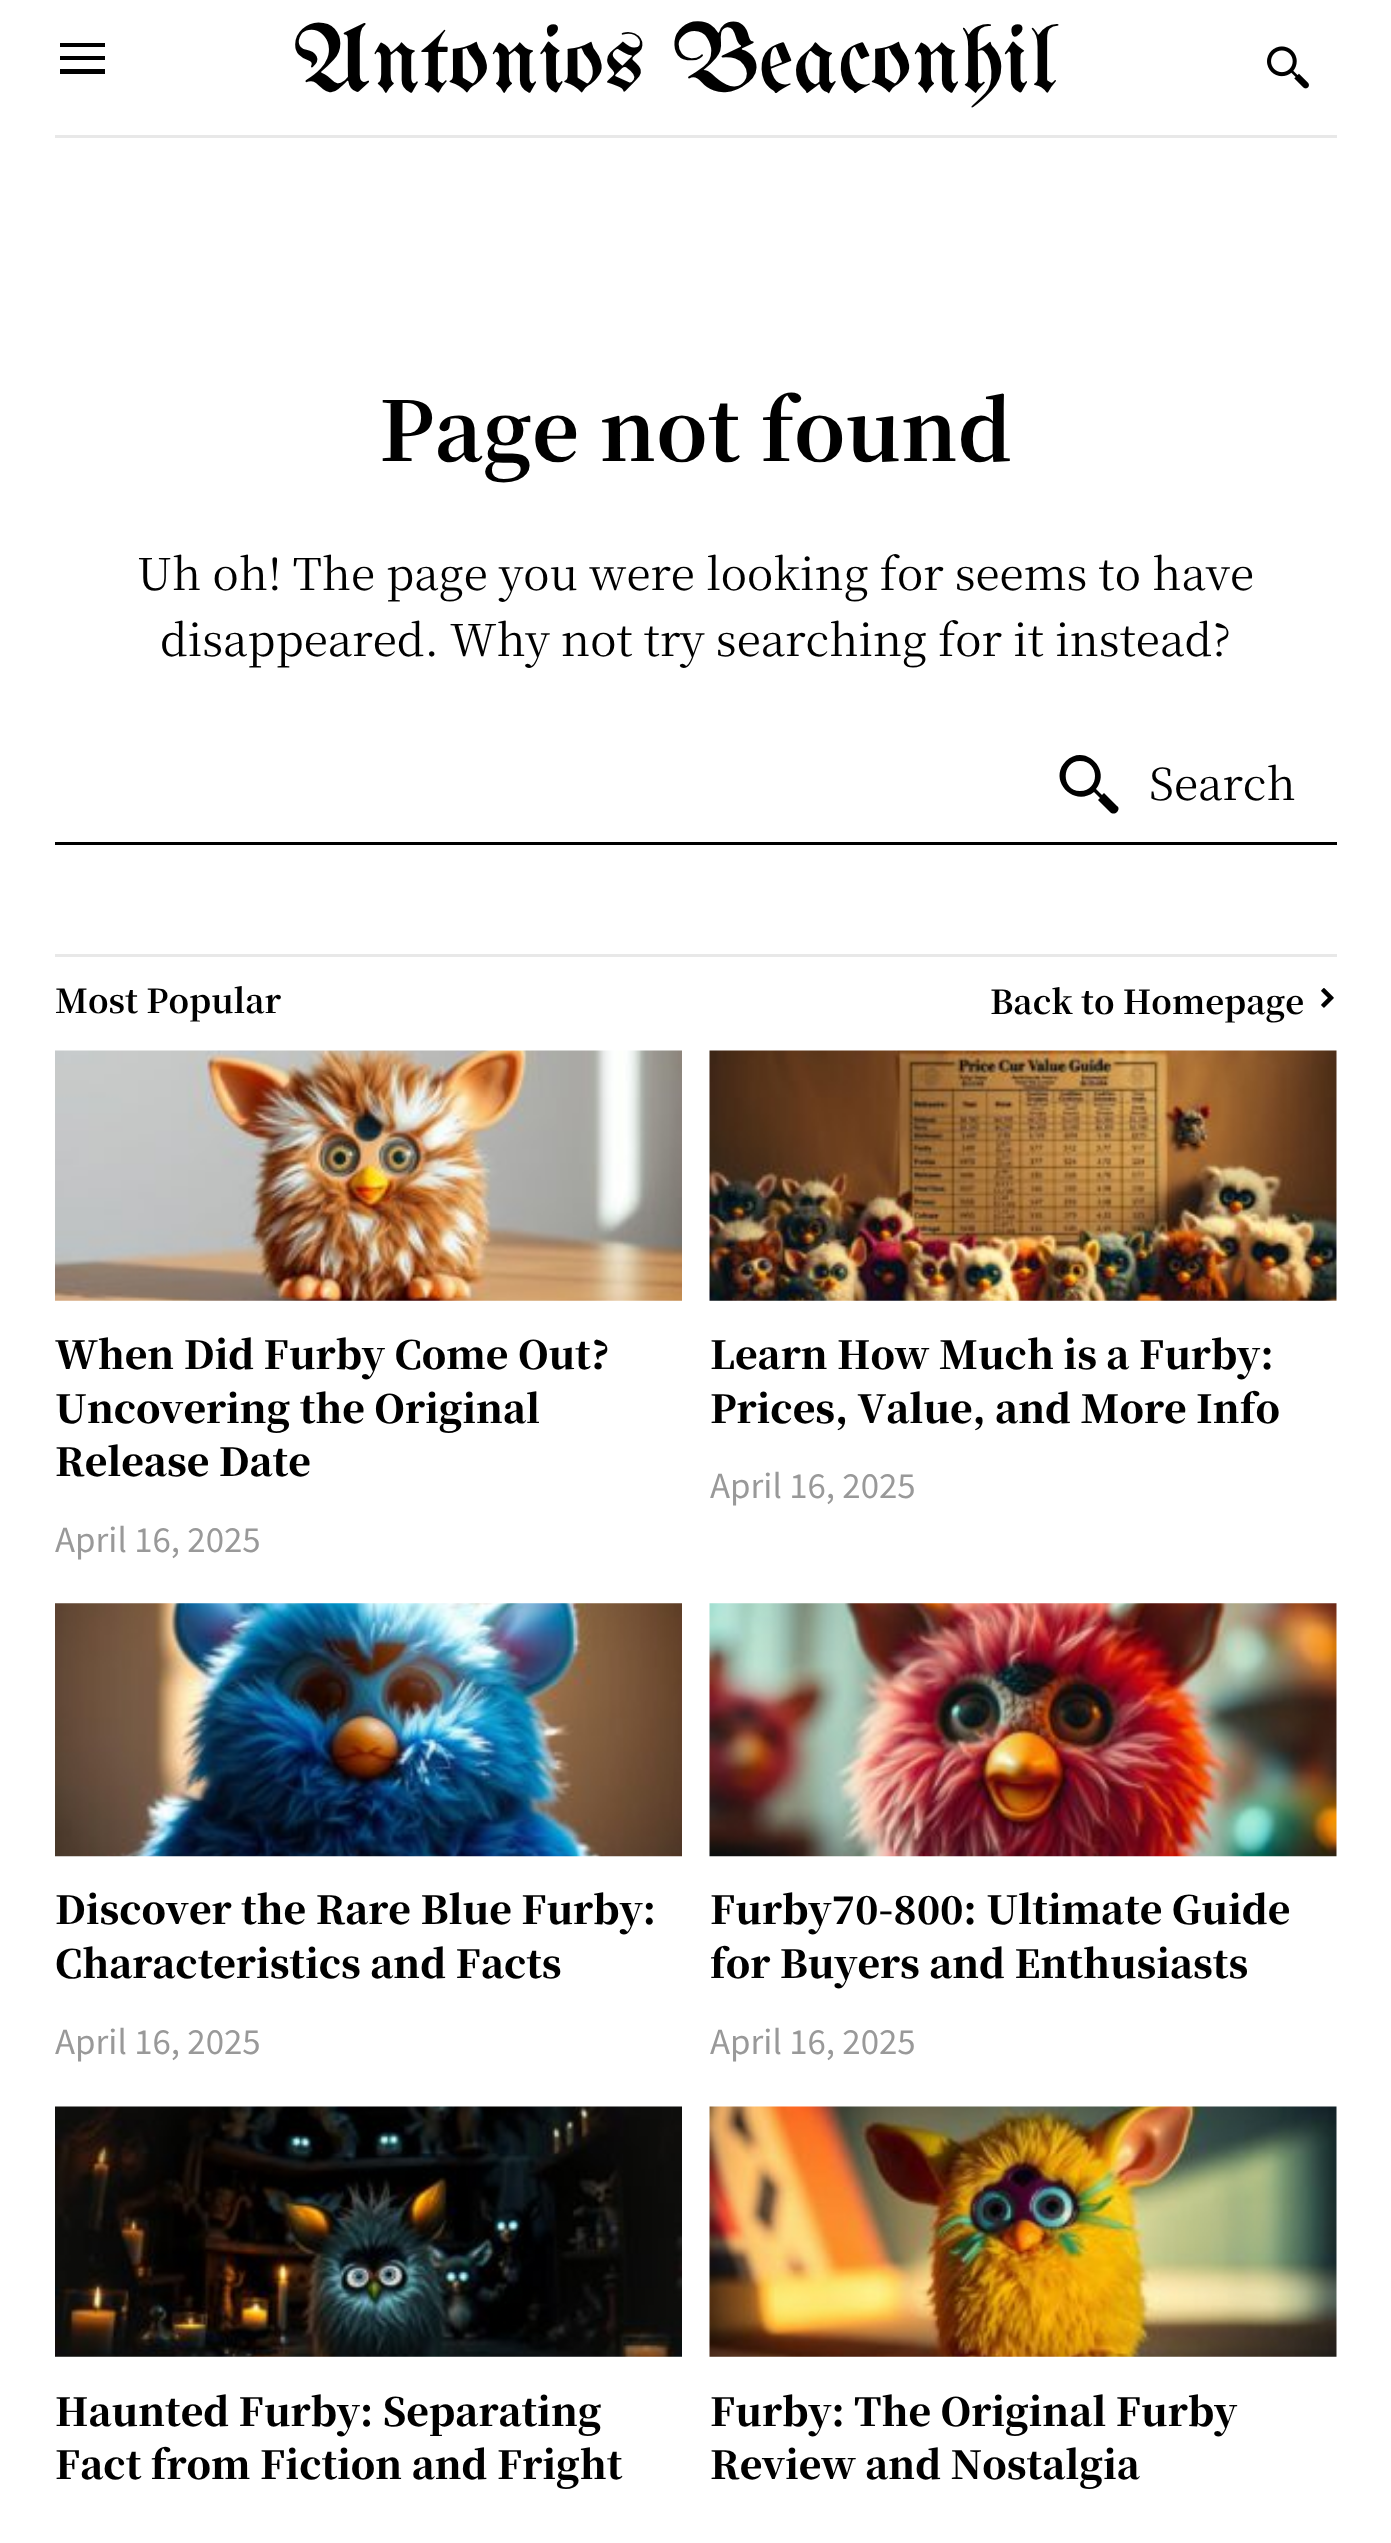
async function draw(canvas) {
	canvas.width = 1391;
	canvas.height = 2543;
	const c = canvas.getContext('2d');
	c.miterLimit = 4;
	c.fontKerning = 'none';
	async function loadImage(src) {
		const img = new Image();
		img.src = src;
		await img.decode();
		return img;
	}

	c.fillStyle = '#fff';
	c.fillRect(0, 0, 1391, 2543);
	c.fillStyle = '#e8e8e8';
	c.fillRect(55, 135, 1282, 3);
	c.fillStyle = '#000';
	c.beginPath();
	c.moveTo(105, 47);
	c.lineTo(60, 47);
	c.lineTo(60, 43);
	c.lineTo(105, 43);
	c.closePath();
	c.moveTo(105, 60);
	c.lineTo(60, 60);
	c.lineTo(60, 56);
	c.lineTo(105, 56);
	c.closePath();
	c.moveTo(105, 74);
	c.lineTo(60, 74);
	c.lineTo(60, 69);
	c.lineTo(105, 69);
	c.closePath();
	c.fill();
	c.font = '96.25px UnifrakturMaguntia';
	c.fillText('Antonios Beaconhil', 293, 91);
	c.drawImage(await loadImage('img1.png'), 1267, 46, 42, 43);
	c.font = 'bold 82.5px Noto Serif JP';
	c.fillText('Page not found', 379, 461);
	c.font = '44px Noto Serif JP';
	c.fillText('Uh oh! The page you were looking for seems to have', 137, 590);
	c.fillText('disappeared. Why not try searching for it instead?', 160, 656);
	c.beginPath();
	c.moveTo(1117, 806);
	c.lineTo(1104, 793);
	c.lineTo(1102, 795);
	c.lineTo(1096, 789);
	c.bezierCurveTo(1112, 770, 1085, 743, 1066, 761);
	c.bezierCurveTo(1047, 780, 1074, 808, 1094, 792);
	c.lineTo(1100, 798);
	c.lineTo(1098, 800);
	c.lineTo(1110, 812);
	c.bezierCurveTo(1112, 814, 1115, 814, 1117, 812);
	c.bezierCurveTo(1119, 810, 1119, 807, 1117, 806);
	c.closePath();
	c.moveTo(1080, 791);
	c.bezierCurveTo(1061, 791, 1061, 761, 1080, 761);
	c.bezierCurveTo(1100, 761, 1100, 791, 1080, 791);
	c.closePath();
	c.fill();
	c.fillText('Search', 1149, 800);
	c.fillRect(55, 842, 1282, 3);
	c.fillStyle = '#e8e8e8';
	c.fillRect(55, 954, 1282, 3);
	c.font = 'bold 33px Noto Serif JP';
	c.fillStyle = '#000';
	c.fillText('Most Popular', 55, 1013);
	c.fillText('Back to Homepage', 990, 1014);
	c.drawImage(await loadImage('img2.png'), 1321, 988, 13, 20);
	c.drawImage(await loadImage('img3.png'), 55, 1050, 627, 251);
	c.font = '900 38.5px Noto Serif JP';
	for (const [text, x, y] of [
		['When Did Furby Come Out?', 55, 1369],
		['Uncovering the Original', 55, 1423],
		['Release Date', 55, 1476],
	]) {
		c.fillText(text, x, y);
	}
	c.font = '100 33px Noto Sans JP';
	c.fillStyle = '#999';
	c.fillText('April 16, 2025', 55, 1552);
	c.drawImage(await loadImage('img4.png'), 709, 1050, 628, 251);
	c.font = '900 38.5px Noto Serif JP';
	c.fillStyle = '#000';
	c.fillText('Learn How Much is a Furby:', 710, 1369);
	c.fillText('Prices, Value, and More', 710, 1423);
	c.fillText('Info', 1196, 1423);
	c.font = '100 33px Noto Sans JP';
	c.fillStyle = '#999';
	c.fillText('April 16, 2025', 710, 1498);
	c.drawImage(await loadImage('img5.png'), 55, 1603, 627, 254);
	c.font = '900 38.5px Noto Serif JP';
	c.fillStyle = '#000';
	c.fillText('Discover the Rare Blue Furby:', 55, 1924);
	c.fillText('Characteristics and Facts', 55, 1978);
	c.font = '100 33px Noto Sans JP';
	c.fillStyle = '#999';
	c.fillText('April 16, 2025', 55, 2054);
	c.drawImage(await loadImage('img6.png'), 709, 1603, 628, 254);
	c.font = '900 38.5px Noto Serif JP';
	c.fillStyle = '#000';
	c.fillText('Furby70-800: Ultimate Guide', 710, 1924);
	c.fillText('for Buyers and Enthusiasts', 710, 1978);
	c.font = '100 33px Noto Sans JP';
	c.fillStyle = '#999';
	c.fillText('April 16, 2025', 710, 2054);
	c.drawImage(await loadImage('img7.png'), 55, 2106, 627, 251);
	c.font = '900 38.5px Noto Serif JP';
	c.fillStyle = '#000';
	c.fillText('Haunted Furby: Separating', 55, 2426);
	c.fillText('Fact from Fiction and Fright', 55, 2479);
	c.drawImage(await loadImage('img8.png'), 709, 2106, 628, 251);
	c.fillText('Furby: The Original Furby', 710, 2426);
	c.fillText('Review and Nostalgia', 710, 2479);
}

draw(document.querySelector('canvas'));
